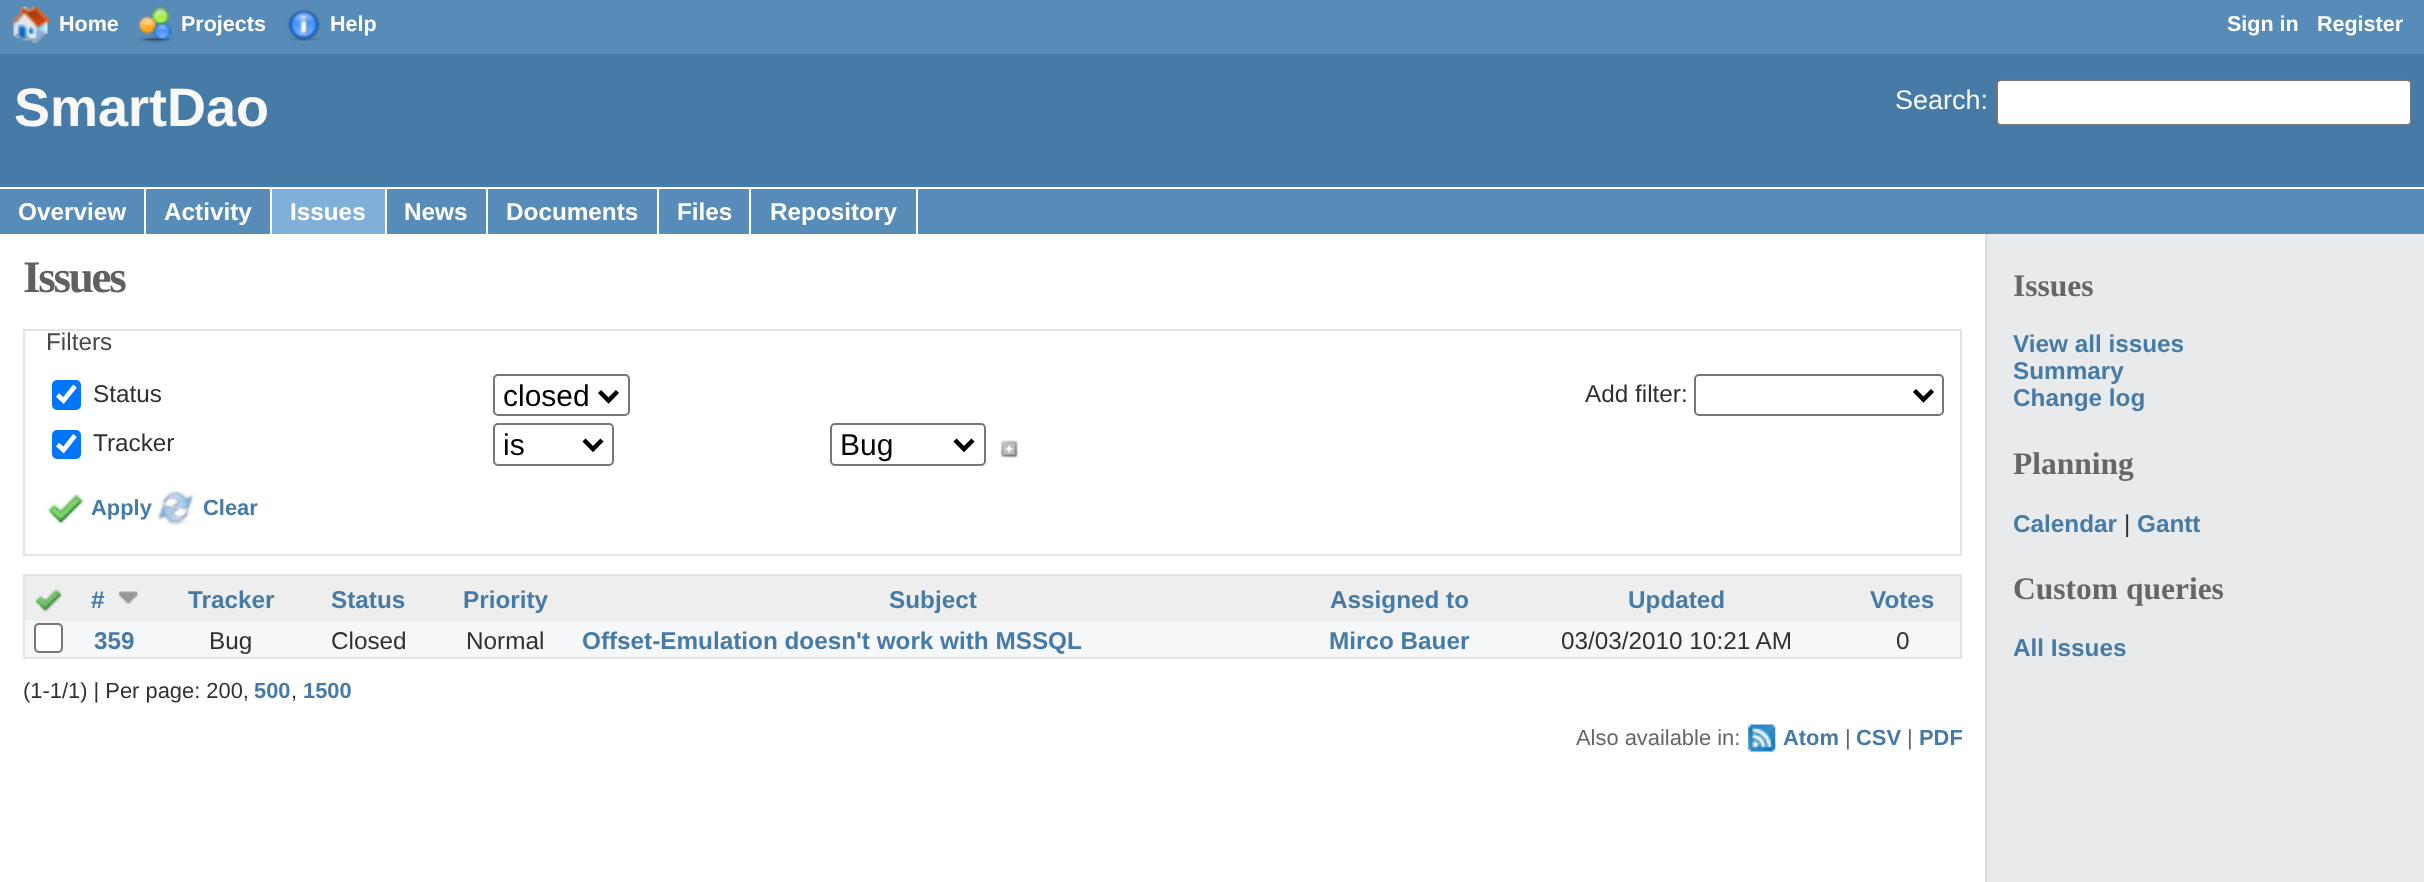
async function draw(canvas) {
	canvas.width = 2424;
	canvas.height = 882;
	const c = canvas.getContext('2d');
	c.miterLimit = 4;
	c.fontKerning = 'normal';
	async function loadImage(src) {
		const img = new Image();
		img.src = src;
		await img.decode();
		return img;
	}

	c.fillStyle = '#578bb8';
	c.fillRect(0, 0, 2424, 882);
	c.drawImage(await loadImage('img1.png'), 13, 6, 37, 37);
	c.font = 'bold 21.5px Liberation Sans';
	c.fillStyle = '#fff';
	c.fillText('Home', 59, 31);
	c.drawImage(await loadImage('img2.png'), 137, 6, 36, 37);
	c.fillText('Projects', 181, 31);
	c.drawImage(await loadImage('img3.png'), 287, 8, 33, 33);
	for (const [text, x, y] of [
		['Help', 330, 31],
		['Sign in', 2227, 31],
		['Register', 2317, 31],
	]) {
		c.fillText(text, x, y);
	}
	c.fillStyle = '#467aa7';
	c.fillRect(0, 54, 2424, 133);
	c.font = 'bold 54px Liberation Sans';
	c.fillStyle = '#f8f8f8';
	c.fillText('SmartDao', 14, 126);
	c.font = '27px Liberation Sans';
	c.fillText('Search:', 1895, 109);
	c.fillStyle = '#fff';
	c.beginPath();
	c.roundRect(1997, 80, 414, 45, 4);
	c.fill();
	c.strokeStyle = '#767676';
	c.lineWidth = 2;
	c.stroke();
	c.fillRect(0, 187, 2424, 2);
	c.fillRect(144, 189, 2, 45);
	c.font = 'bold 24.3px Liberation Sans';
	c.fillText('Overview', 18, 220);
	c.fillRect(270, 189, 2, 45);
	c.fillText('Activity', 164, 220);
	c.fillStyle = '#80b0da';
	c.fillRect(272, 189, 113, 45);
	c.fillStyle = '#fff';
	c.fillRect(385, 189, 2, 45);
	c.fillText('Issues', 290, 220);
	c.fillRect(486, 189, 2, 45);
	c.fillText('News', 404, 220);
	c.fillRect(657, 189, 2, 45);
	c.fillText('Documents', 506, 220);
	c.fillRect(749, 189, 2, 45);
	c.fillText('Files', 677, 220);
	c.fillRect(916, 189, 2, 45);
	c.fillText('Repository', 770, 220);
	for (const [x, y, w, h, color] of [
		[1987, 234, 437, 648, '#e8eaec'],
		[0, 234, 1985, 648, '#fff'],
		[1985, 234, 2, 648, '#ddd'],
	]) {
		c.fillStyle = color;
		c.fillRect(x, y, w, h);
	}
	c.letterSpacing = '-2.25px';
	c.font = 'bold 45px Liberation Serif';
	c.fillStyle = '#606060';
	c.fillText('Issues', 23, 292);
	c.strokeStyle = '#e4e4e4';
	c.strokeRect(24, 330, 1937, 225);
	c.letterSpacing = '0px';
	c.font = '24.3px Liberation Sans';
	c.fillStyle = '#484848';
	c.fillText('Filters', 46, 350);
	c.fillStyle = '#0075ff';
	c.beginPath();
	c.roundRect(52, 380, 29, 30, 5);
	c.fill();
	c.beginPath();
	c.moveTo(57.5, 395);
	c.lineTo(63.5, 400.5);
	c.lineTo(75, 386);
	c.strokeStyle = '#fff';
	c.lineWidth = 4.7;
	c.stroke();
	c.fillStyle = '#303030';
	c.fillText('Status', 93, 402);
	c.beginPath();
	c.roundRect(494, 375, 135, 40, 4);
	c.strokeStyle = '#767676';
	c.lineWidth = 2;
	c.stroke();
	c.beginPath();
	c.moveTo(599.5, 391.5);
	c.lineTo(608.5, 400.5);
	c.lineTo(617.5, 391.5);
	c.strokeStyle = '#000';
	c.lineWidth = 4.5;
	c.stroke();
	c.font = '30px Liberation Sans';
	c.fillStyle = '#000';
	c.fillText('closed', 503, 406);
	c.fillStyle = '#0075ff';
	c.beginPath();
	c.roundRect(52, 430, 29, 29, 5);
	c.fill();
	c.beginPath();
	c.moveTo(57.5, 444.5);
	c.lineTo(63.5, 450);
	c.lineTo(75, 435.5);
	c.strokeStyle = '#fff';
	c.lineWidth = 4.7;
	c.stroke();
	c.font = '24.3px Liberation Sans';
	c.fillStyle = '#303030';
	c.fillText('Tracker', 93, 451);
	c.beginPath();
	c.roundRect(494, 424, 119, 41, 4);
	c.strokeStyle = '#767676';
	c.lineWidth = 2;
	c.stroke();
	c.beginPath();
	c.moveTo(584, 440);
	c.lineTo(593, 449);
	c.lineTo(602, 440);
	c.strokeStyle = '#000';
	c.lineWidth = 4.5;
	c.stroke();
	c.font = '30px Liberation Sans';
	c.fillStyle = '#000';
	c.fillText('is', 503, 455);
	c.beginPath();
	c.roundRect(831, 424, 154, 41, 4);
	c.strokeStyle = '#767676';
	c.lineWidth = 2;
	c.stroke();
	c.beginPath();
	c.moveTo(955, 440);
	c.lineTo(964, 449);
	c.lineTo(973, 440);
	c.strokeStyle = '#000';
	c.lineWidth = 4.5;
	c.stroke();
	c.fillText('Bug', 840, 455);
	c.drawImage(await loadImage('img4.png'), 1000, 440, 18, 18);
	c.font = '24.3px Liberation Sans';
	c.fillStyle = '#303030';
	c.fillText('Add filter:', 1585, 402);
	c.beginPath();
	c.roundRect(1695, 375, 248, 40, 4);
	c.strokeStyle = '#767676';
	c.lineWidth = 2;
	c.stroke();
	c.beginPath();
	c.moveTo(1914.5, 390.5);
	c.lineTo(1923.5, 399.5);
	c.lineTo(1932.5, 390.5);
	c.strokeStyle = '#000';
	c.lineWidth = 4.5;
	c.stroke();
	c.drawImage(await loadImage('img5.png'), 47, 494, 37, 29);
	c.font = 'bold 21.9px Liberation Sans';
	c.fillStyle = '#467aa7';
	c.fillText('Apply', 91, 515);
	c.drawImage(await loadImage('img6.png'), 157, 490, 37, 35);
	c.fillText('Clear', 203, 515);
	for (const [x, y, w, h, color] of [
		[23, 574, 1939, 2, '#e4e4e4'],
		[1960, 574, 2, 85, '#e4e4e4'],
		[23, 657, 1939, 2, '#e4e4e4'],
		[23, 574, 2, 85, '#e4e4e4'],
		[25, 576, 1935, 45, '#eee'],
	]) {
		c.fillStyle = color;
		c.fillRect(x, y, w, h);
	}
	c.drawImage(await loadImage('img7.png'), 36, 589, 25, 23);
	c.font = 'bold 24.3px Liberation Sans';
	c.fillStyle = '#467aa7';
	c.fillText('#', 91, 608);
	c.drawImage(await loadImage('img8.png'), 119, 591, 19, 13);
	for (const [text, x, y] of [
		['Tracker', 188, 608],
		['Status', 331, 608],
		['Priority', 463, 608],
		['Subject', 889, 608],
		['Assigned to', 1330, 608],
		['Updated', 1628, 608],
		['Votes', 1870, 608],
	]) {
		c.fillText(text, x, y);
	}
	c.fillStyle = '#f6f7f8';
	c.fillRect(25, 621, 1935, 36);
	c.fillStyle = '#fff';
	c.beginPath();
	c.roundRect(35, 624, 27, 28, 4);
	c.fill();
	c.strokeStyle = '#767676';
	c.lineWidth = 2;
	c.stroke();
	c.fillStyle = '#467aa7';
	c.fillText('359', 94, 649);
	c.font = '24.3px Liberation Sans';
	c.fillStyle = '#303030';
	for (const [text, x, y] of [
		['Bug', 209, 649],
		['Closed', 331, 649],
		['Normal', 466, 649],
	]) {
		c.fillText(text, x, y);
	}
	c.font = 'bold 24.3px Liberation Sans';
	c.fillStyle = '#467aa7';
	c.fillText('Offset-Emulation doesn\'t work with MSSQL', 582, 649);
	c.fillText('Mirco Bauer', 1329, 649);
	c.font = '24.3px Liberation Sans';
	c.fillStyle = '#303030';
	c.fillText('03/03/2010 10:21 AM', 1561, 649);
	c.fillText('0', 1896, 649);
	c.font = '21.9px Liberation Sans';
	c.fillText('(1-1/1) | Per page: 200,', 23, 698);
	c.font = 'bold 21.9px Liberation Sans';
	c.fillStyle = '#467aa7';
	c.fillText('500', 254, 698);
	c.font = '21.9px Liberation Sans';
	c.fillStyle = '#303030';
	c.fillText(',', 291, 698);
	c.font = 'bold 21.9px Liberation Sans';
	c.fillStyle = '#467aa7';
	c.fillText('1500', 303, 698);
	c.font = '21.9px Liberation Sans';
	c.fillStyle = '#666';
	c.fillText('Also available in:', 1576, 745);
	c.drawImage(await loadImage('img9.png'), 1748, 724, 28, 28);
	c.font = 'bold 21.9px Liberation Sans';
	c.fillStyle = '#467aa7';
	c.fillText('Atom', 1783, 745);
	c.font = '21.9px Liberation Sans';
	c.fillStyle = '#666';
	c.fillText('|', 1845, 745);
	c.font = 'bold 21.9px Liberation Sans';
	c.fillStyle = '#467aa7';
	c.fillText('CSV', 1856, 745);
	c.font = '21.9px Liberation Sans';
	c.fillStyle = '#666';
	c.fillText('|', 1907, 745);
	c.font = 'bold 21.9px Liberation Sans';
	c.fillStyle = '#467aa7';
	c.fillText('PDF', 1919, 745);
	c.font = 'bold 31.5px Liberation Serif';
	c.fillStyle = '#666';
	c.fillText('Issues', 2013, 296);
	c.font = 'bold 24.3px Liberation Sans';
	c.fillStyle = '#467aa7';
	for (const [text, x, y] of [
		['View all issues', 2013, 352],
		['Summary', 2013, 379],
		['Change log', 2013, 406],
	]) {
		c.fillText(text, x, y);
	}
	c.font = 'bold 31.5px Liberation Serif';
	c.fillStyle = '#666';
	c.fillText('Planning', 2013, 474);
	c.font = 'bold 24.3px Liberation Sans';
	c.fillStyle = '#467aa7';
	c.fillText('Calendar', 2013, 532);
	c.font = '24.3px Liberation Sans';
	c.fillStyle = '#303030';
	c.fillText('|', 2124, 532);
	c.font = 'bold 24.3px Liberation Sans';
	c.fillStyle = '#467aa7';
	c.fillText('Gantt', 2137, 532);
	c.font = 'bold 31.5px Liberation Serif';
	c.fillStyle = '#666';
	c.fillText('Custom queries', 2013, 599);
	c.font = 'bold 24.3px Liberation Sans';
	c.fillStyle = '#467aa7';
	c.fillText('All Issues', 2013, 656);
}

draw(document.querySelector('canvas'));
